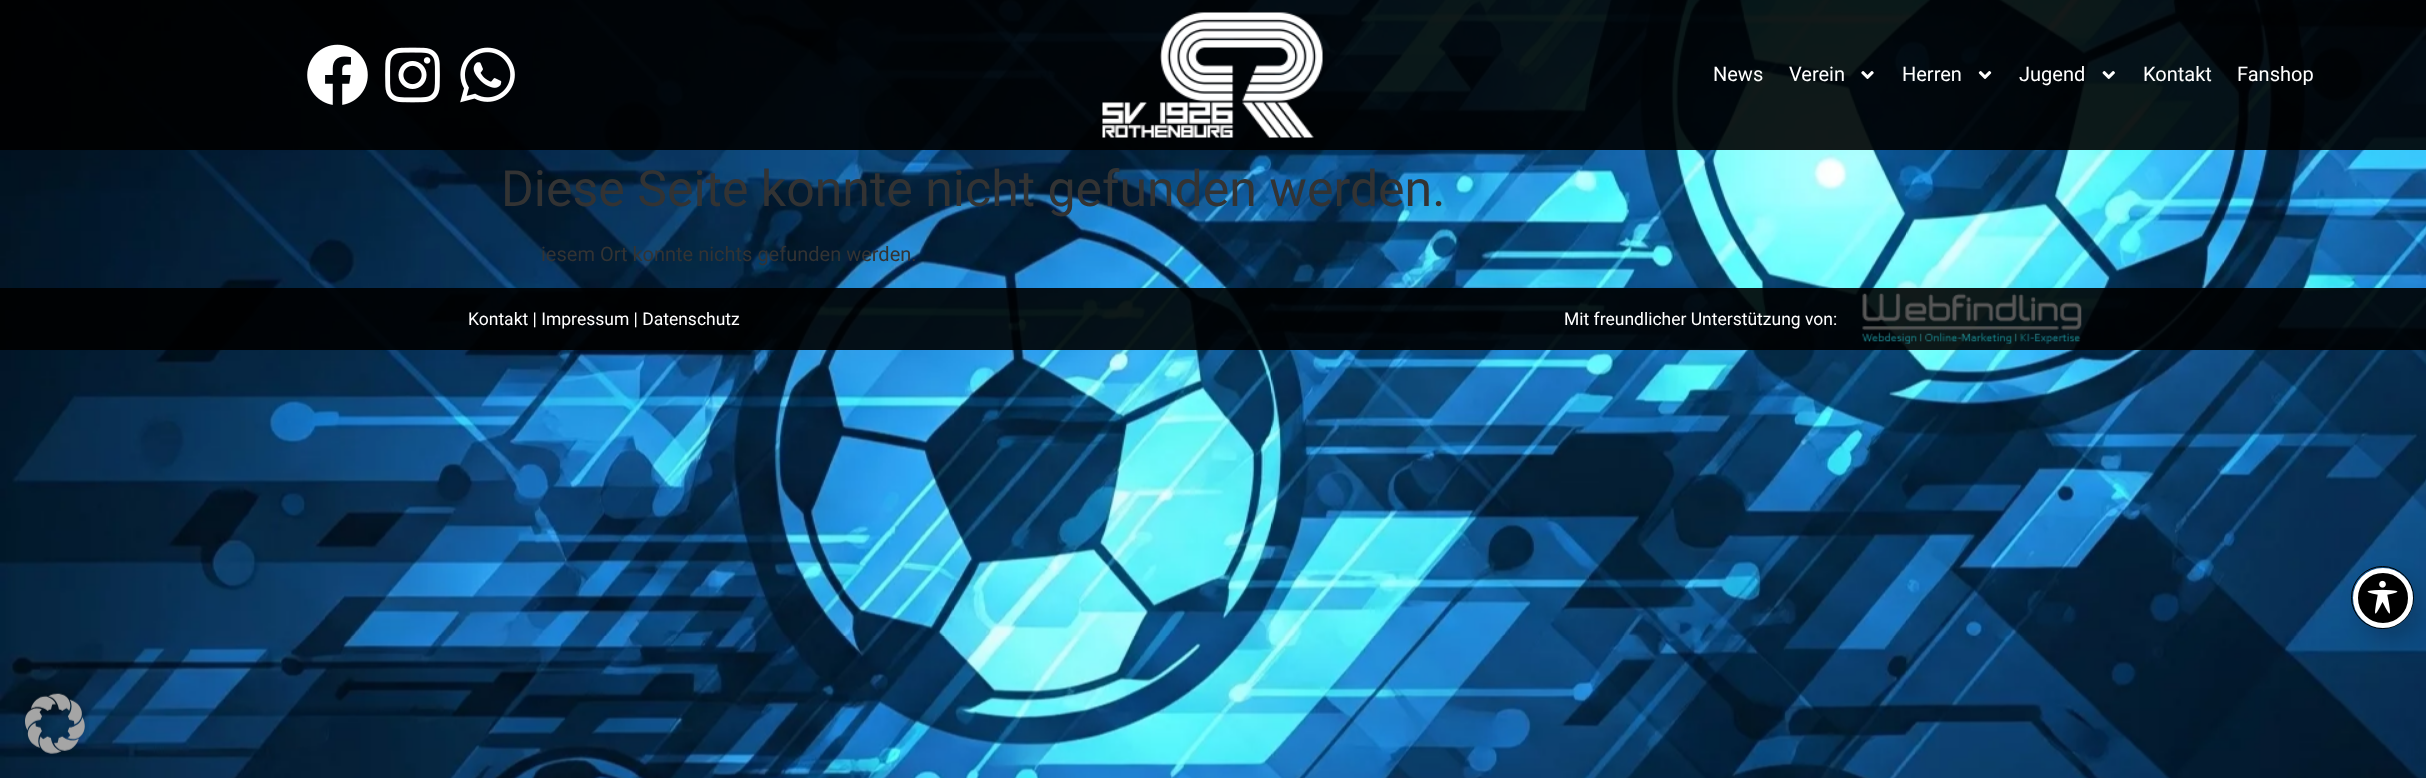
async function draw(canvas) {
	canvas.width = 2426;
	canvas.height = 778;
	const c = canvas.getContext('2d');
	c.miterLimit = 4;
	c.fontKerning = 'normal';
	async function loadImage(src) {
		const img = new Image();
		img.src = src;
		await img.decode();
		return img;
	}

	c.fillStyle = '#fff';
	c.fillRect(0, 0, 2426, 778);
	c.drawImage(await loadImage('img1.png'), 0, 0, 2426, 778);
	c.fillStyle = '#000000e6';
	c.fillRect(0, 0, 2426, 150);
	c.drawImage(await loadImage('img2.png'), 307, 44, 61, 61);
	c.drawImage(await loadImage('img3.png'), 385, 47, 55, 56);
	c.drawImage(await loadImage('img4.png'), 460, 47, 55, 56);
	c.drawImage(await loadImage('img5.png'), 1102, 12, 221, 126);
	c.font = '20px Roboto';
	c.fillStyle = '#fff';
	c.fillText('News', 1713, 81);
	c.fillText('Verein', 1789, 81);
	c.drawImage(await loadImage('img6.png'), 1861, 71, 13, 8);
	c.fillText('Herren', 1902, 81);
	c.drawImage(await loadImage('img7.png'), 1978, 71, 14, 8);
	c.fillText('Jugend', 2019, 81);
	c.drawImage(await loadImage('img8.png'), 2102, 71, 13, 8);
	c.fillText('Kontakt', 2143, 81);
	c.fillText('Fanshop', 2237, 81);
	c.font = '50px Roboto';
	c.fillStyle = '#333';
	c.fillText('Diese Seite konnte nicht gefunden werden.', 501, 206);
	c.font = '20px Roboto';
	c.fillText('iesem Ort konnte nichts gefunden werden.', 541, 261);
	c.fillStyle = '#000000e6';
	c.fillRect(0, 288, 2426, 62);
	c.font = '17.5px Roboto';
	c.fillStyle = '#fff';
	c.fillText('Kontakt | Impressum | Datenschutz', 468, 325);
	c.fillText('Mit freundlicher Unterstützung von:', 1564, 325);
	c.drawImage(await loadImage('img9.png'), 1862, 293, 220, 51);
	c.beginPath();
	c.arc(2382.5, 597.5, 31, 0, 2 * Math.PI);
	c.strokeStyle = '#000';
	c.stroke();
	c.fillStyle = '#00000033';
	c.filter = 'blur(10px)';
	c.beginPath();
	c.roundRect(2360, 578, 60, 60, 30);
	c.fill();
	c.filter = 'none';
	c.fillStyle = '#000';
	c.beginPath();
	c.arc(2383, 598, 27.5, 0, 2 * Math.PI);
	c.fill();
	c.strokeStyle = '#fff';
	c.lineWidth = 5;
	c.stroke();
	c.drawImage(await loadImage('img10.png'), 2367, 580, 31, 34);
	c.drawImage(await loadImage('img11.png'), 23, 693, 66, 61);
}

draw(document.querySelector('canvas'));
